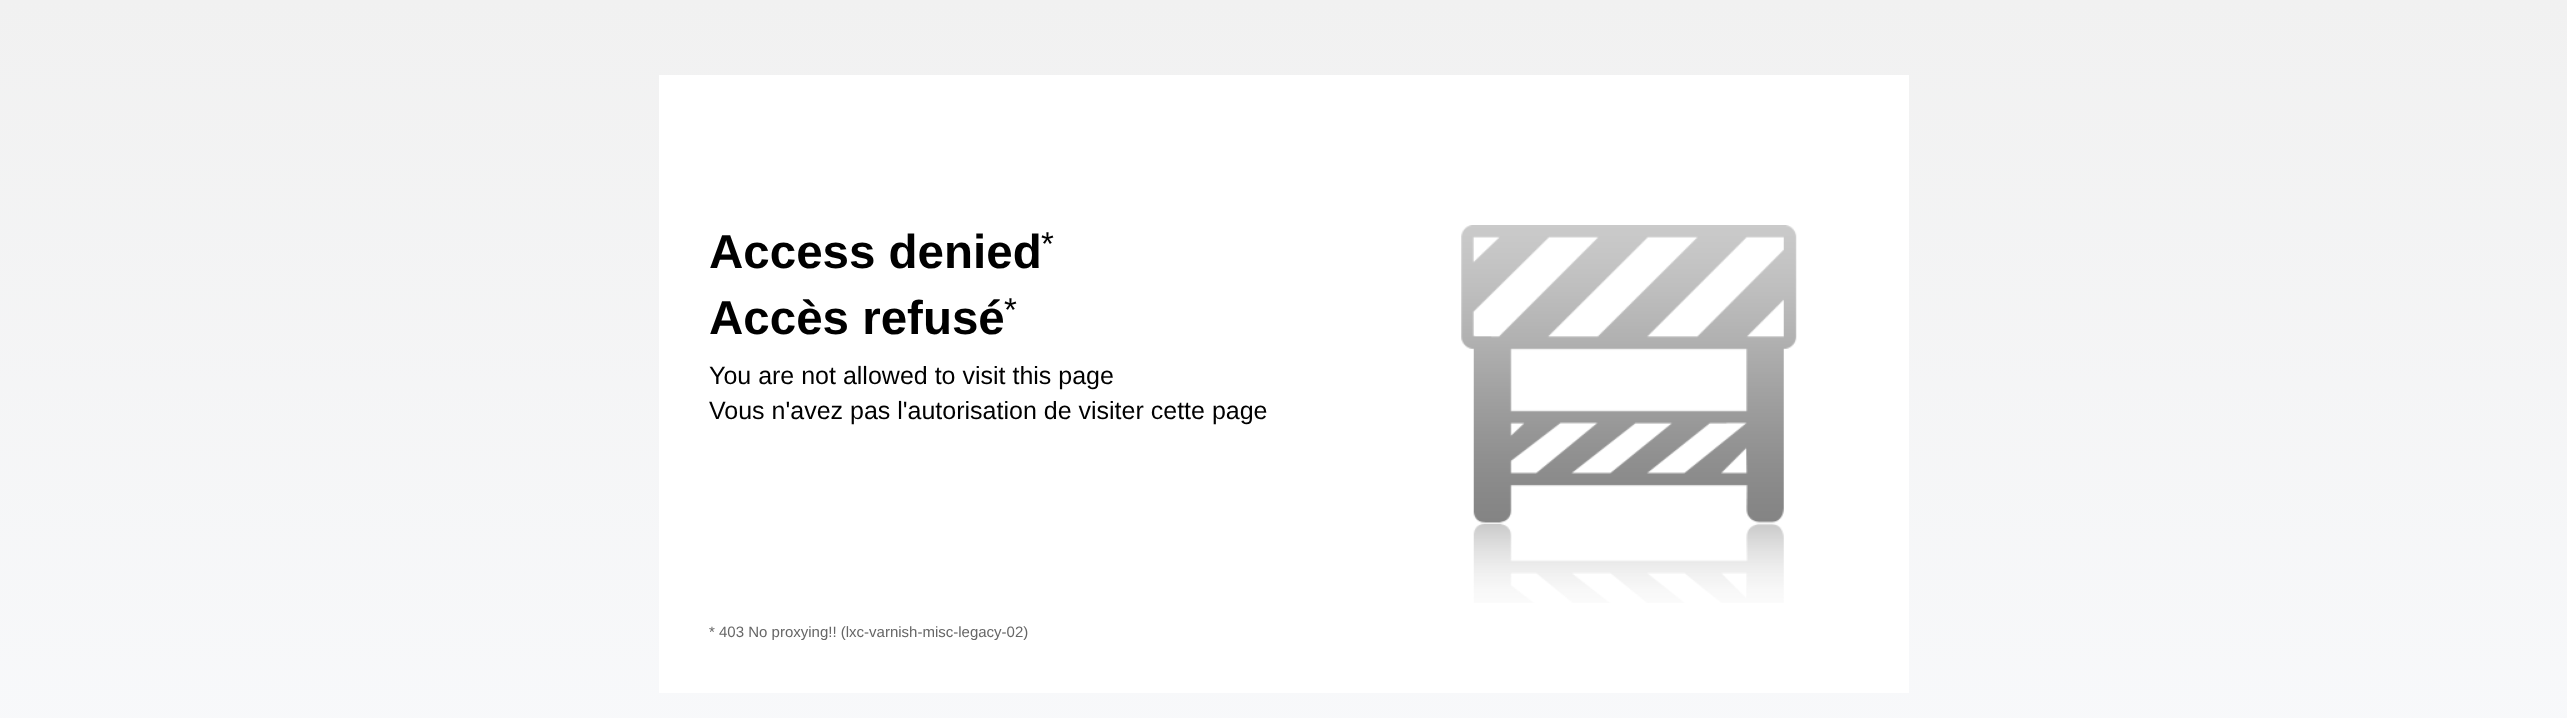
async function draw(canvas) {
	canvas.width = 2567;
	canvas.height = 718;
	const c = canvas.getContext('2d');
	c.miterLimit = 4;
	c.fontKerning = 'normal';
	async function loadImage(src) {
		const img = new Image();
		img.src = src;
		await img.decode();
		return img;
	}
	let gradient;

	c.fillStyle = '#fff';
	c.fillRect(0, 0, 2567, 718);
	gradient = c.createLinearGradient(1284, 0, 1284, 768);
	gradient.addColorStop(0, '#f1f1f1');
	gradient.addColorStop(1, '#f8f9fb');
	c.fillStyle = gradient;
	c.fillRect(0, 0, 2567, 718);
	c.fillStyle = '#fff';
	c.fillRect(659, 75, 1250, 618);
	c.font = 'bold 47.5px Liberation Sans';
	c.fillStyle = '#000';
	c.fillText('Access denied', 709, 268);
	c.font = '33px Liberation Sans';
	c.fillText('*', 1041, 255);
	c.drawImage(await loadImage('img1.png'), 1461, 225, 336, 378);
	c.font = 'bold 47.5px Liberation Sans';
	c.fillText('Accès refusé', 709, 334);
	c.font = '33px Liberation Sans';
	c.fillText('*', 1004, 321);
	c.font = '25px Liberation Sans';
	c.fillText('You are not allowed to visit this page', 709, 384);
	c.fillText('Vous n\'avez pas l\'autorisation de visiter cette page', 709, 419);
	c.font = '15px Liberation Sans';
	c.fillStyle = '#666';
	c.fillText('* 403 No proxying!! (lxc-varnish-misc-legacy-02)', 709, 637);
}

draw(document.querySelector('canvas'));
